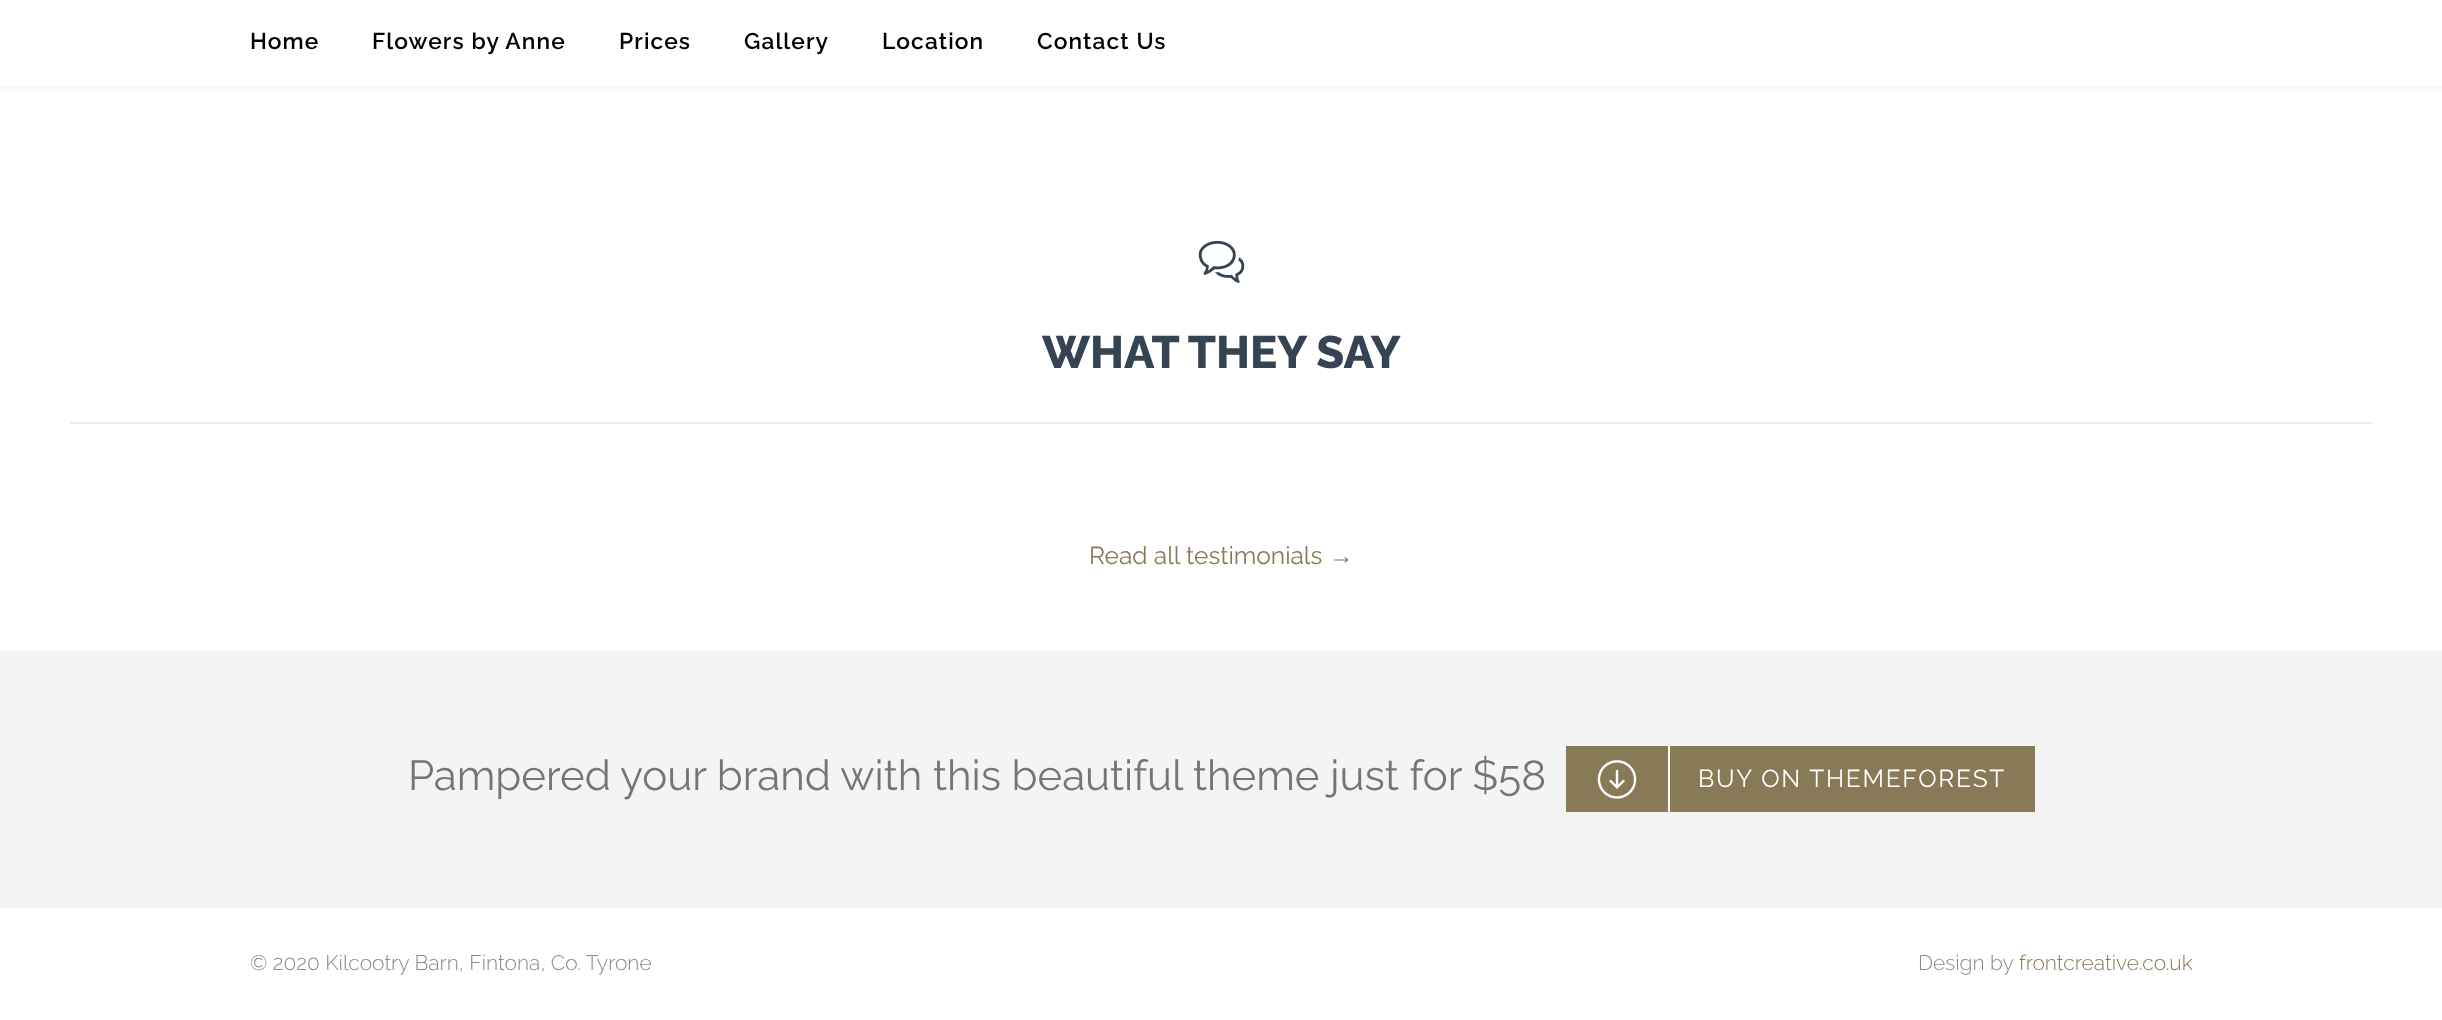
async function draw(canvas) {
	canvas.width = 2442;
	canvas.height = 1020;
	const c = canvas.getContext('2d');
	c.miterLimit = 4;
	c.fontKerning = 'normal';
	async function loadImage(src) {
		const img = new Image();
		img.src = src;
		await img.decode();
		return img;
	}

	c.fillStyle = '#fff';
	c.fillRect(0, 0, 2442, 1020);
	c.fillStyle = '#0000000a';
	c.filter = 'blur(2px)';
	c.beginPath();
	c.rect(0, -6, 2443, 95);
	c.fill();
	c.filter = 'none';
	c.fillStyle = '#fff';
	c.fillRect(0, 0, 2442, 86);
	c.letterSpacing = '1.1px';
	c.font = '600 22.75px Raleway';
	c.fillStyle = '#000';
	for (const [text, x, y] of [
		['Home', 250, 49],
		['Flowers by Anne', 372, 49],
		['Prices', 619, 49],
		['Gallery', 744, 49],
		['Location', 882, 49],
		['Contact Us', 1037, 49],
	]) {
		c.fillText(text, x, y);
	}
	c.drawImage(await loadImage('img1.png'), 1198, 240, 47, 43);
	c.letterSpacing = '0px';
	c.font = '800 45.5px Raleway';
	c.fillStyle = '#364352';
	c.fillText('WHAT THEY SAY', 1042, 368);
	c.fillStyle = '#ededed';
	c.fillRect(70, 422, 2303, 2);
	c.font = '24.5px Raleway';
	c.fillStyle = '#887a56';
	c.fillText('Read all testimonials', 1089, 564);
	c.font = '24.5px Liberation Serif';
	c.fillText('→', 1329, 564);
	c.fillStyle = '#f4f4f4';
	c.fillRect(0, 651, 2442, 257);
	c.font = '42px Raleway';
	c.fillStyle = '#757575';
	c.fillText('Pampered your brand with this beautiful theme just for $58', 408, 790);
	c.fillStyle = '#887a56';
	c.fillRect(1566, 746, 469, 66);
	c.fillStyle = '#fff';
	c.fillRect(1668, 746, 2, 66);
	c.drawImage(await loadImage('img2.png'), 1597, 760, 40, 39);
	c.letterSpacing = '1.75px';
	c.font = '24.5px Raleway';
	c.fillText('BUY ON THEMEFOREST', 1698, 787);
	c.letterSpacing = '0px';
	c.font = '300 21px Raleway';
	c.fillStyle = '#898989';
	c.fillText('© 2020 Kilcootry Barn, Fintona, Co. Tyrone', 250, 970);
	c.fillText('Design by', 1918, 970);
	c.fillStyle = '#887a56';
	c.fillText('frontcreative.co.uk', 2019, 970);
}

draw(document.querySelector('canvas'));
